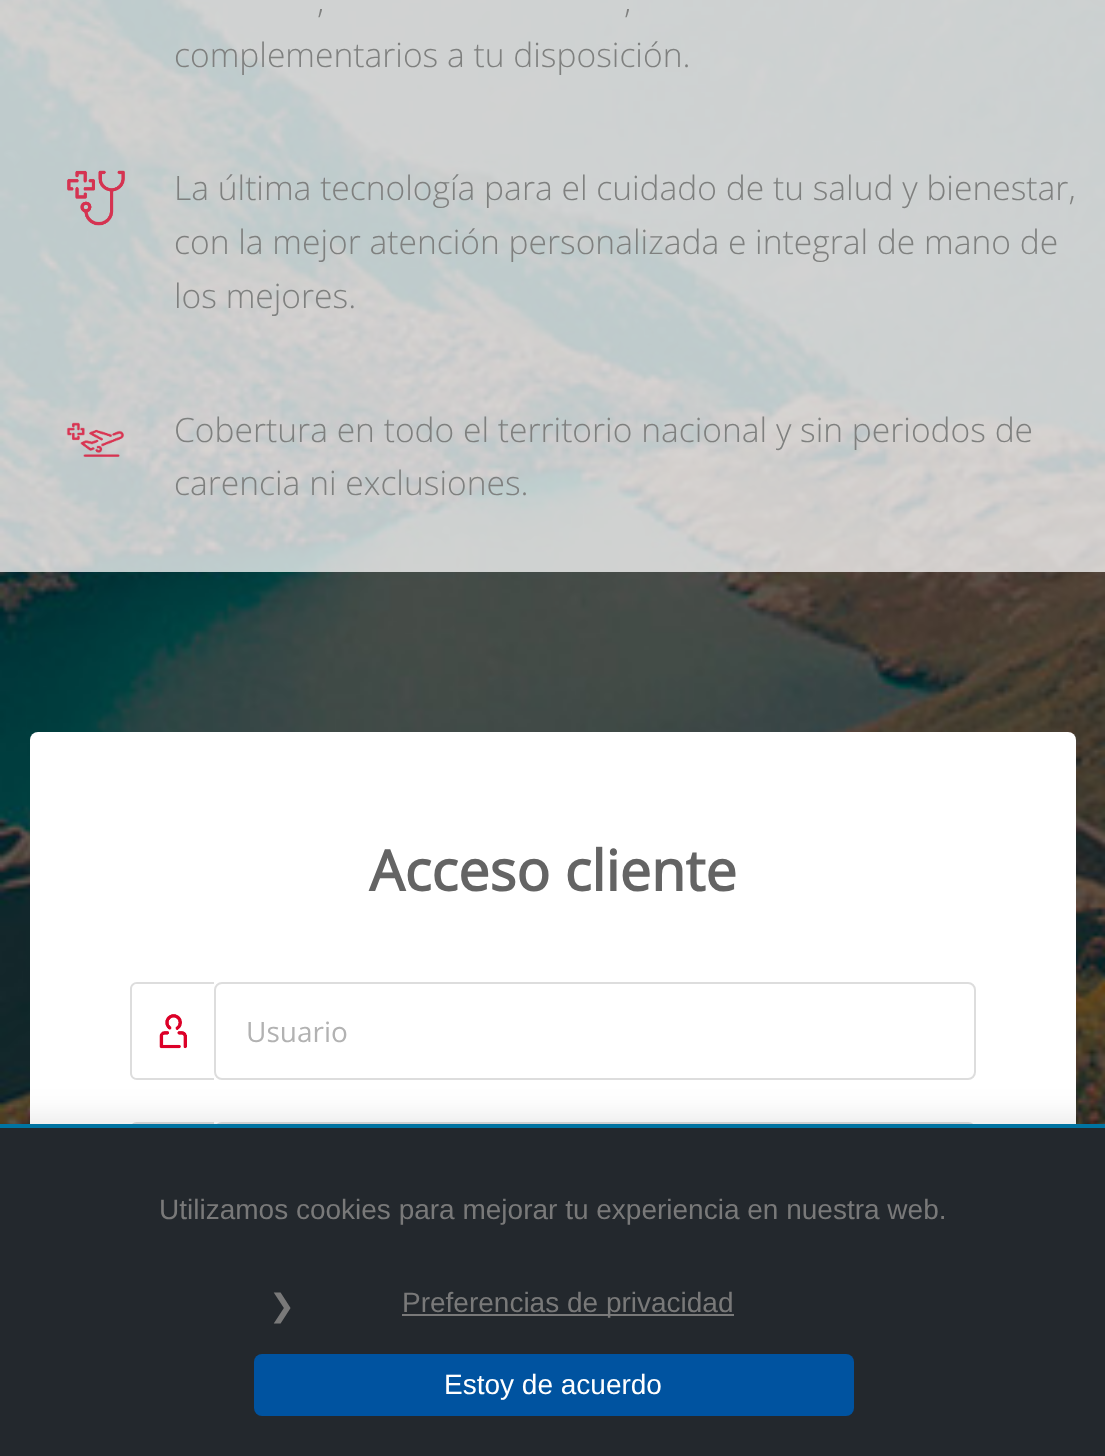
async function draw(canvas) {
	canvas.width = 1105;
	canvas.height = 1456;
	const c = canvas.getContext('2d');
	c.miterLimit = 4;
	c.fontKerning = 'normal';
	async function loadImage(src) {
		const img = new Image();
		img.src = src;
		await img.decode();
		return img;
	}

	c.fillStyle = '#fff';
	c.fillRect(0, 0, 1105, 1456);
	c.drawImage(await loadImage('img1.png'), 0, 0, 1105, 1124);
	c.fillStyle = '#ffffffbf';
	c.fillRect(0, 0, 1105, 572);
	c.font = '300 33.6px Open Sans';
	c.fillStyle = '#7f807f';
	for (const [text, x, y] of [
		[',', 317, 13],
		[',', 624, 13],
		['complementarios a tu disposición.', 174, 67],
	]) {
		c.fillText(text, x, y);
	}
	c.drawImage(await loadImage('img2.png'), 67, 170, 58, 56);
	for (const [text, x, y] of [
		['La última tecnología para el cuidado de tu salud y bienestar,', 174, 200],
		['con la mejor atención personalizada e integral de mano de', 174, 254],
		['los mejores.', 174, 308],
	]) {
		c.fillText(text, x, y);
	}
	c.drawImage(await loadImage('img3.png'), 66, 422, 58, 35);
	c.fillText('Cobertura en todo el territorio nacional y sin periodos de', 174, 442);
	c.fillText('carencia ni exclusiones.', 174, 495);
	c.fillStyle = '#fff';
	c.beginPath();
	c.roundRect(30, 732, 1046, 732, 8);
	c.fill();
	c.font = 'bold 56px Open Sans';
	c.fillStyle = '#646464';
	c.fillText('Acceso cliente', 369, 891);
	c.fillStyle = '#ddd';
	c.beginPath();
	c.moveTo(137, 982);
	c.lineTo(214, 982);
	c.lineTo(214, 1080);
	c.lineTo(137, 1080);
	c.bezierCurveTo(133, 1080, 130, 1077, 130, 1073);
	c.lineTo(130, 989);
	c.bezierCurveTo(130, 985, 133, 982, 137, 982);
	c.closePath();
	c.moveTo(137, 984);
	c.lineTo(214, 984);
	c.lineTo(214, 1078);
	c.lineTo(137, 1078);
	c.bezierCurveTo(134, 1078, 132, 1076, 132, 1073);
	c.lineTo(132, 989);
	c.bezierCurveTo(132, 986, 134, 984, 137, 984);
	c.closePath();
	c.fill('evenodd');
	c.drawImage(await loadImage('img4.png'), 159, 1014, 28, 35);
	c.beginPath();
	c.roundRect(215, 983, 760, 96, 7);
	c.strokeStyle = '#ddd';
	c.lineWidth = 2;
	c.stroke();
	c.font = '28px Open Sans';
	c.fillStyle = '#b2b2b2';
	c.fillText('Usuario', 246, 1042);
	c.fillStyle = '#ddd';
	c.beginPath();
	c.moveTo(137, 1122);
	c.lineTo(214, 1122);
	c.lineTo(214, 1222);
	c.lineTo(137, 1222);
	c.bezierCurveTo(133, 1222, 130, 1219, 130, 1215);
	c.lineTo(130, 1129);
	c.bezierCurveTo(130, 1125, 133, 1122, 137, 1122);
	c.closePath();
	c.moveTo(137, 1124);
	c.lineTo(214, 1124);
	c.lineTo(214, 1220);
	c.lineTo(137, 1220);
	c.bezierCurveTo(134, 1220, 132, 1218, 132, 1215);
	c.lineTo(132, 1129);
	c.bezierCurveTo(132, 1126, 134, 1124, 137, 1124);
	c.closePath();
	c.fill('evenodd');
	c.beginPath();
	c.roundRect(215, 1123, 760, 98, 7);
	c.stroke();
	c.fillStyle = '#0000001a';
	c.filter = 'blur(16px)';
	c.beginPath();
	c.rect(-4, 1120, 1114, 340);
	c.fill();
	c.filter = 'none';
	c.fillStyle = '#23282d';
	c.fillRect(0, 1128, 1105, 328);
	c.fillStyle = '#0074a2';
	c.fillRect(0, 1124, 1105, 4);
	c.font = '28px Liberation Sans';
	c.fillStyle = '#797979';
	c.fillText('Utilizamos cookies para mejorar tu experiencia en nuestra web.', 159, 1219);
	c.font = '31px DejaVu Sans';
	c.fillText('❯', 269, 1316);
	c.fillRect(402, 1314, 332, 2);
	c.font = '28px Liberation Sans';
	c.fillText('Preferencias de privacidad', 402, 1312);
	c.fillStyle = '#0053a0';
	c.beginPath();
	c.roundRect(254, 1354, 600, 62, 8);
	c.fill();
	c.fillStyle = '#fff';
	c.fillText('Estoy de acuerdo', 444, 1394);
}

draw(document.querySelector('canvas'));
